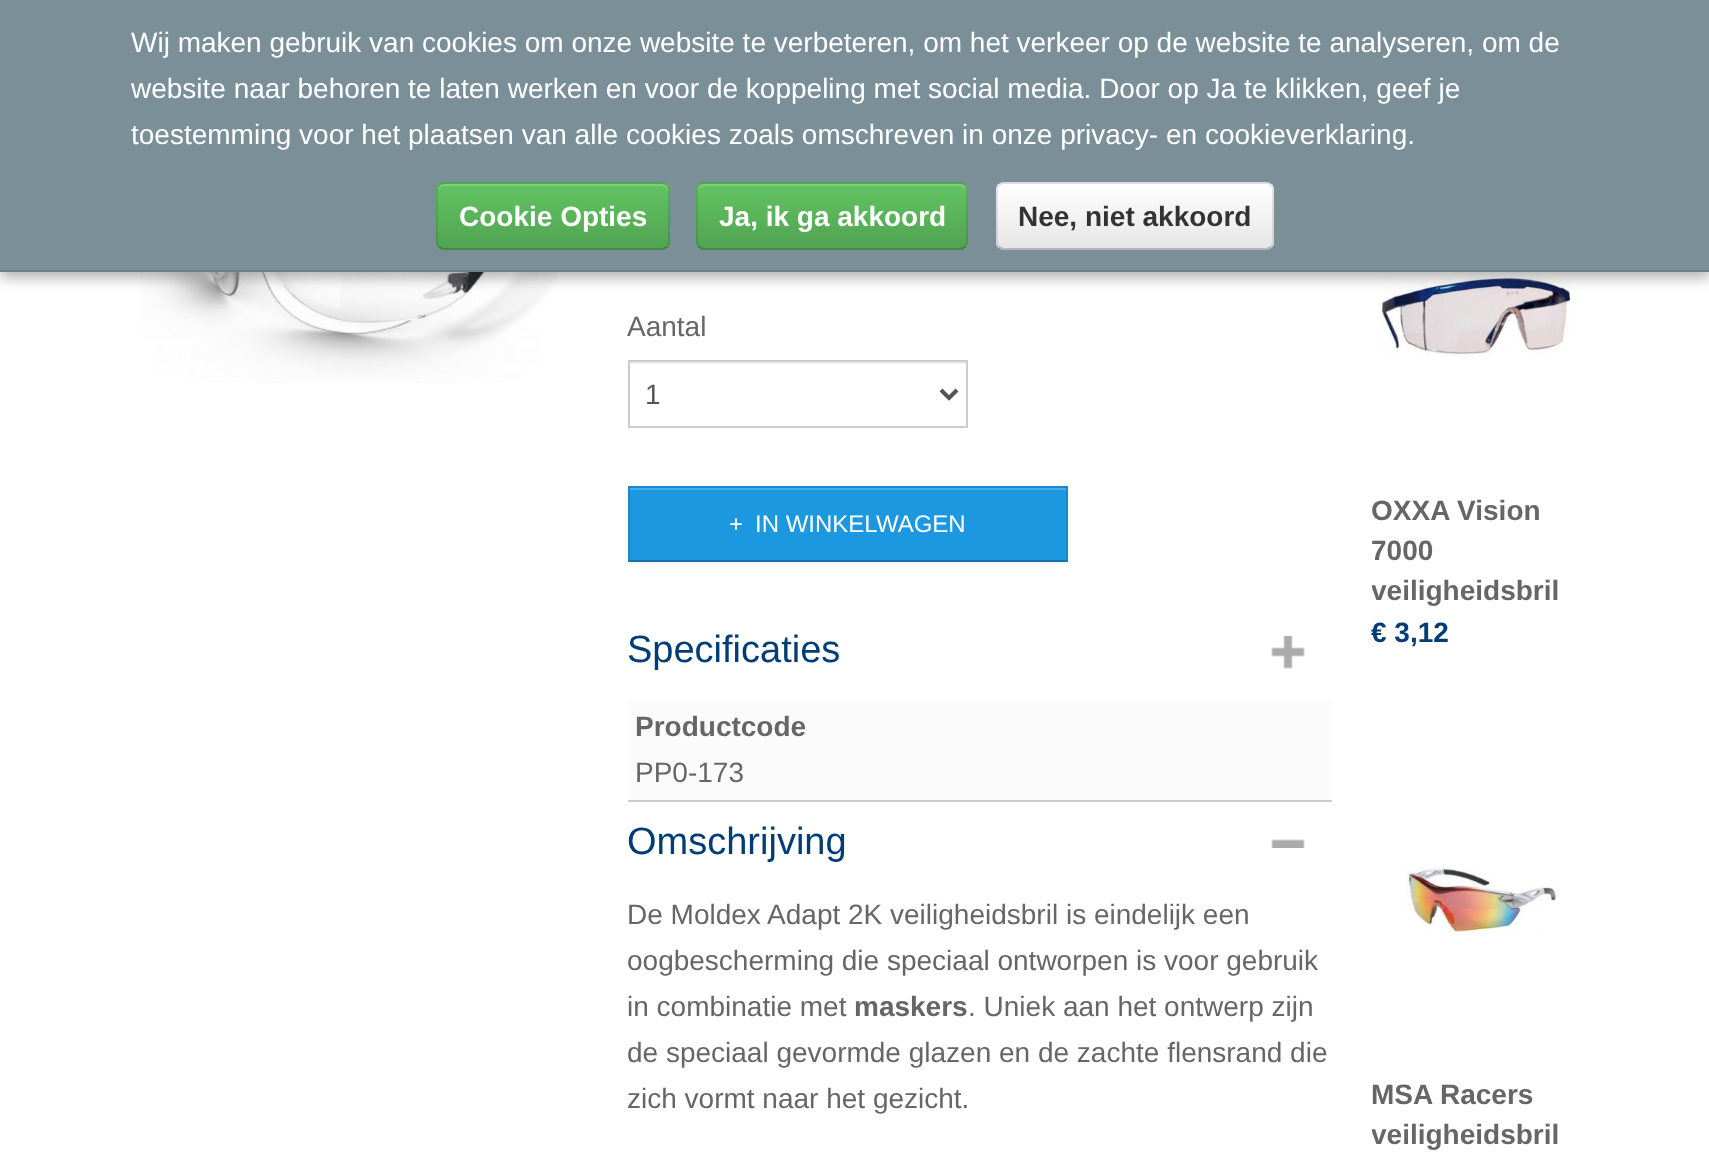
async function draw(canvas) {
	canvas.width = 1709;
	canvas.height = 1153;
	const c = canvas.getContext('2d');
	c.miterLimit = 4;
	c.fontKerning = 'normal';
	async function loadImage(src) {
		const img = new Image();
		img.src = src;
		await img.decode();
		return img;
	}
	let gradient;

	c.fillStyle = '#fff';
	c.fillRect(0, 0, 1709, 1153);
	c.drawImage(await loadImage('img1.png'), 140, 272, 418, 111);
	c.drawImage(await loadImage('img4.png'), 1382, 272, 188, 85);
	c.fillStyle = '#0000004d';
	c.filter = 'blur(7px)';
	c.beginPath();
	c.rect(0, 6, 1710, 272);
	c.fill();
	c.filter = 'none';
	c.fillStyle = '#7a8f98';
	c.fillRect(0, 0, 1709, 270);
	c.fillStyle = '#697e87';
	c.fillRect(0, 270, 1709, 2);
	c.font = '28px Liberation Sans';
	c.fillStyle = '#fff';
	for (const [text, x, y] of [
		['Wij maken gebruik van cookies om onze website te verbeteren, om het verkeer op de website te analyseren, om de', 131, 52],
		['website naar behoren te laten werken en voor de koppeling met social media. Door op Ja te klikken, geef je', 131, 98],
		['toestemming voor het plaatsen van alle cookies zoals omschreven in onze privacy- en cookieverklaring.', 131, 144],
	]) {
		c.fillText(text, x, y);
	}
	c.fillStyle = '#5bb75b';
	c.beginPath();
	c.roundRect(436, 182, 234, 68, 8);
	c.fill();
	c.save();
	c.beginPath();
	c.roundRect(436, 182, 234, 68, 8);
	c.clip();
	gradient = c.createLinearGradient(553, 184, 553, 248);
	gradient.addColorStop(0, '#62c462');
	gradient.addColorStop(1, '#51a351');
	c.fillStyle = gradient;
	c.fillRect(436, 184, 234, 64);
	c.restore();
	c.fillStyle = '#ffffff33';
	c.beginPath();
	c.moveTo(444, 186);
	c.lineTo(662, 186);
	c.bezierCurveTo(665, 186, 668, 189, 668, 192);
	c.lineTo(668, 190);
	c.bezierCurveTo(668, 187, 665, 184, 662, 184);
	c.lineTo(444, 184);
	c.bezierCurveTo(441, 184, 438, 187, 438, 190);
	c.lineTo(438, 192);
	c.bezierCurveTo(438, 189, 441, 186, 444, 186);
	c.closePath();
	c.fill();
	c.beginPath();
	c.moveTo(667, 247);
	c.bezierCurveTo(665.5, 248.5, 664, 249, 662, 249);
	c.lineTo(444, 249);
	c.bezierCurveTo(442, 249, 440.5, 248.5, 439, 247);
	c.strokeStyle = '#00000040';
	c.lineWidth = 2;
	c.stroke();
	c.beginPath();
	c.moveTo(439, 247);
	c.bezierCurveTo(437.5, 245.5, 437, 244, 437, 242);
	c.lineTo(437, 190);
	c.bezierCurveTo(437, 188, 437.5, 186.5, 439, 185);
	c.bezierCurveTo(440.5, 183.5, 442, 183, 444, 183);
	c.lineTo(662, 183);
	c.bezierCurveTo(664, 183, 665.5, 183.5, 667, 185);
	c.bezierCurveTo(668.5, 186.5, 669, 188, 669, 190);
	c.lineTo(669, 242);
	c.bezierCurveTo(669, 244, 668.5, 245.5, 667, 247);
	c.strokeStyle = '#0000001a';
	c.stroke();
	c.font = 'bold 28px Liberation Sans';
	c.fillStyle = '#fff';
	c.fillText('Cookie Opties', 459, 226);
	c.fillStyle = '#5bb75b';
	c.beginPath();
	c.roundRect(696, 182, 272, 68, 8);
	c.fill();
	c.save();
	c.beginPath();
	c.roundRect(696, 182, 272, 68, 8);
	c.clip();
	gradient = c.createLinearGradient(832, 184, 832, 248);
	gradient.addColorStop(0, '#62c462');
	gradient.addColorStop(1, '#51a351');
	c.fillStyle = gradient;
	c.fillRect(696, 184, 272, 64);
	c.restore();
	c.fillStyle = '#81cf81';
	c.beginPath();
	c.moveTo(704, 186);
	c.lineTo(960, 186);
	c.bezierCurveTo(963, 186, 966, 189, 966, 192);
	c.bezierCurveTo(966, 189, 965, 185, 961, 184);
	c.lineTo(703, 184);
	c.bezierCurveTo(699, 185, 698, 189, 698, 192);
	c.bezierCurveTo(698, 189, 701, 186, 704, 186);
	c.closePath();
	c.fill();
	c.beginPath();
	c.moveTo(965, 247);
	c.bezierCurveTo(963.5, 248.5, 962, 249, 960, 249);
	c.lineTo(704, 249);
	c.bezierCurveTo(702, 249, 700.5, 248.5, 699, 247);
	c.strokeStyle = '#00000040';
	c.stroke();
	c.beginPath();
	c.moveTo(699, 247);
	c.bezierCurveTo(697.5, 245.5, 697, 244, 697, 242);
	c.lineTo(697, 190);
	c.bezierCurveTo(697, 188, 697.5, 186.5, 699, 185);
	c.bezierCurveTo(700.5, 183.5, 702, 183, 704, 183);
	c.lineTo(960, 183);
	c.bezierCurveTo(962, 183, 963.5, 183.5, 965, 185);
	c.bezierCurveTo(966.5, 186.5, 967, 188, 967, 190);
	c.lineTo(967, 242);
	c.bezierCurveTo(967, 244, 966.5, 245.5, 965, 247);
	c.strokeStyle = '#0000001a';
	c.stroke();
	c.fillStyle = '#fff';
	c.fillText('Ja, ik ga akkoord', 719, 226);
	c.fillStyle = '#f5f5f5';
	c.beginPath();
	c.roundRect(996, 182, 278, 68, 8);
	c.fill();
	c.save();
	c.beginPath();
	c.roundRect(996, 182, 278, 68, 8);
	c.clip();
	gradient = c.createLinearGradient(1135, 184, 1135, 248);
	gradient.addColorStop(0, '#fff');
	gradient.addColorStop(1, '#e6e6e6');
	c.fillStyle = gradient;
	c.fillRect(996, 184, 278, 64);
	c.restore();
	c.beginPath();
	c.moveTo(1271, 247);
	c.bezierCurveTo(1269.5, 248.5, 1268, 249, 1266, 249);
	c.lineTo(1004, 249);
	c.bezierCurveTo(1002, 249, 1000.5, 248.5, 999, 247);
	c.strokeStyle = '#00000040';
	c.stroke();
	c.beginPath();
	c.moveTo(999, 247);
	c.bezierCurveTo(997.5, 245.5, 997, 244, 997, 242);
	c.lineTo(997, 190);
	c.bezierCurveTo(997, 188, 997.5, 186.5, 999, 185);
	c.bezierCurveTo(1000.5, 183.5, 1002, 183, 1004, 183);
	c.lineTo(1266, 183);
	c.bezierCurveTo(1268, 183, 1269.5, 183.5, 1271, 185);
	c.bezierCurveTo(1272.5, 186.5, 1273, 188, 1273, 190);
	c.lineTo(1273, 242);
	c.bezierCurveTo(1273, 244, 1272.5, 245.5, 1271, 247);
	c.strokeStyle = '#0000001a';
	c.stroke();
	c.fillStyle = '#333';
	c.fillText('Nee, niet akkoord', 1018, 226);
	c.font = '28px Liberation Sans';
	c.fillStyle = '#666';
	c.fillText('Aantal', 627, 336);
	c.fillStyle = '#ececec';
	c.fillRect(630, 362, 336, 2);
	c.strokeStyle = '#ccc';
	c.strokeRect(629, 361, 338, 66);
	c.beginPath();
	c.moveTo(941, 390);
	c.lineTo(949, 398);
	c.lineTo(957, 390);
	c.strokeStyle = '#555';
	c.lineWidth = 4;
	c.stroke();
	c.fillStyle = '#555';
	c.fillText('1', 645, 404);
	c.fillStyle = '#0000000d';
	c.filter = 'blur(2px)';
	c.beginPath();
	c.rect(628, 488, 440, 76);
	c.fill();
	c.filter = 'none';
	c.fillStyle = '#1b98e0';
	c.fillRect(628, 486, 440, 76);
	c.fillStyle = '#49ade6';
	c.fillRect(630, 488, 436, 2);
	c.fillStyle = '#1889ca';
	c.beginPath();
	c.moveTo(628, 486);
	c.lineTo(1068, 486);
	c.lineTo(1066, 488);
	c.lineTo(630, 488);
	c.closePath();
	c.fill();
	c.fillStyle = '#0000001a';
	c.beginPath();
	c.moveTo(1068, 486);
	c.lineTo(1068, 562);
	c.lineTo(1066, 560);
	c.lineTo(1066, 488);
	c.closePath();
	c.fill();
	c.fillStyle = '#00000040';
	c.beginPath();
	c.moveTo(1068, 562);
	c.lineTo(628, 562);
	c.lineTo(630, 560);
	c.lineTo(1066, 560);
	c.closePath();
	c.fill();
	c.fillStyle = '#0000001a';
	c.beginPath();
	c.moveTo(628, 562);
	c.lineTo(628, 486);
	c.lineTo(630, 488);
	c.lineTo(630, 560);
	c.closePath();
	c.fill();
	c.font = '24px Liberation Sans';
	c.fillStyle = '#fff';
	c.fillText('+', 729, 532);
	c.fillText('IN WINKELWAGEN', 755, 532);
	c.fillStyle = '#ccc';
	c.fillRect(628, 800, 704, 2);
	c.drawImage(await loadImage('img2.png'), 1271, 636, 34, 33);
	c.font = '38px Liberation Sans';
	c.fillStyle = '#003c76';
	c.fillText('Specificaties', 627, 662);
	c.fillStyle = '#fbfbfb';
	c.fillRect(628, 700, 704, 100);
	c.font = 'bold 28px Liberation Sans';
	c.fillStyle = '#666';
	c.fillText('Productcode', 635, 736);
	c.font = '28px Liberation Sans';
	c.fillText('PP0-173', 635, 782);
	c.drawImage(await loadImage('img3.png'), 1271, 839, 34, 9);
	c.font = '38px Liberation Sans';
	c.fillStyle = '#003c76';
	c.fillText('Omschrijving', 627, 854);
	c.font = '28px Liberation Sans';
	c.fillStyle = '#666';
	for (const [text, x, y] of [
		['De Moldex Adapt 2K veiligheidsbril is eindelijk een', 627, 924],
		['oogbescherming die speciaal ontworpen is voor gebruik', 627, 970],
		['in combinatie met', 627, 1016],
	]) {
		c.fillText(text, x, y);
	}
	c.font = 'bold 28px Liberation Sans';
	c.fillText('maskers', 854, 1016);
	c.font = '28px Liberation Sans';
	for (const [text, x, y] of [
		['. Uniek aan het ontwerp zijn', 968, 1016],
		['de speciaal gevormde glazen en de zachte flensrand die', 627, 1062],
		['zich vormt naar het gezicht.', 627, 1108],
	]) {
		c.fillText(text, x, y);
	}
	c.font = 'bold 28px Liberation Sans';
	c.fillText('OXXA Vision', 1371, 520);
	c.fillText('7000', 1371, 560);
	c.save();
	c.beginPath();
	c.rect(1372, 490, 208, 120);
	c.clip();
	c.fillText('veiligheidsbril', 1371, 600);
	c.restore();
	c.fillStyle = '#003c76';
	c.fillText('€ 3,12', 1371, 642);
	c.drawImage(await loadImage('img5.png'), 1406, 865, 151, 71);
	c.fillStyle = '#666';
	c.fillText('MSA Racers', 1371, 1104);
	c.save();
	c.beginPath();
	c.rect(1372, 1074, 208, 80);
	c.clip();
	c.fillText('veiligheidsbril', 1371, 1144);
	c.restore();
}

draw(document.querySelector('canvas'));
